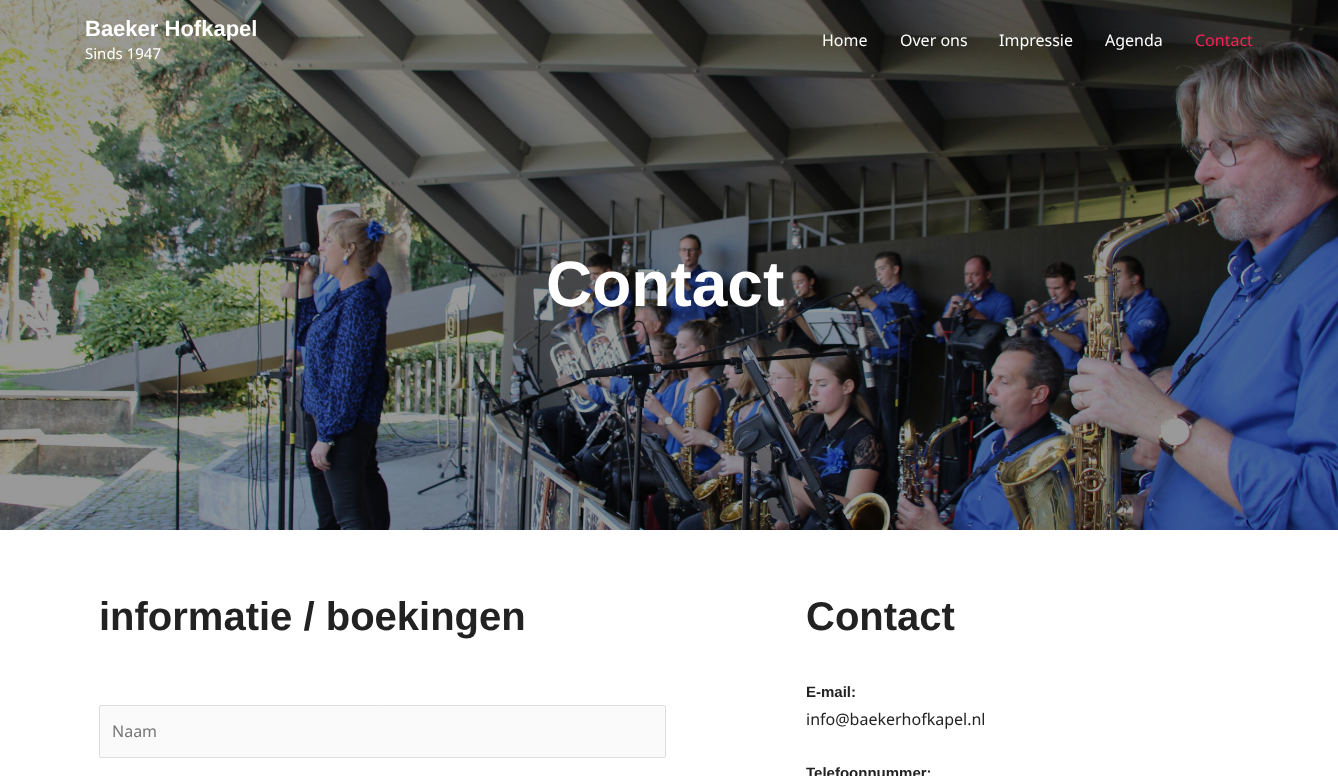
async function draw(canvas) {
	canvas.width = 1338;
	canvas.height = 776;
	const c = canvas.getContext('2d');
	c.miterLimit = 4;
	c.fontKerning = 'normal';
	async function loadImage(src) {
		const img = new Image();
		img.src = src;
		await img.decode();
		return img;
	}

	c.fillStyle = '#fff';
	c.fillRect(0, 0, 1338, 776);
	c.drawImage(await loadImage('img1.png'), 0, 0, 1338, 530);
	c.font = 'bold 22px Liberation Sans';
	c.fillText('Baeker Hofkapel', 85, 36);
	c.font = '15px Noto Sans';
	c.fillText('Sinds 1947', 85, 59);
	c.font = '16px Noto Sans';
	for (const [text, x, y] of [
		['Home', 822, 46],
		['Over ons', 900, 46],
		['Impressie', 999, 46],
		['Agenda', 1105, 46],
	]) {
		c.fillText(text, x, y);
	}
	c.fillStyle = '#fb2056';
	c.fillText('Contact', 1195, 46);
	c.font = 'bold 64px Liberation Sans';
	c.fillStyle = '#fff';
	c.fillText('Contact', 546, 306);
	c.font = 'bold 40px Liberation Sans';
	c.fillStyle = '#222';
	c.fillText('informatie / boekingen', 99, 630);
	c.fillStyle = '#fafafa';
	c.beginPath();
	c.roundRect(99.5, 705.5, 566, 52, 1.5);
	c.fill();
	c.strokeStyle = '#ddd';
	c.stroke();
	c.font = '16px Noto Sans';
	c.fillStyle = '#757575';
	c.fillText('Naam', 112, 737);
	c.font = 'bold 40px Liberation Sans';
	c.fillStyle = '#222';
	c.fillText('Contact', 806, 630);
	c.font = 'bold 15px Liberation Sans';
	c.fillText('E-mail:', 806, 697);
	c.font = '16px Noto Sans';
	c.fillText('info@baekerhofkapel.nl', 806, 725);
	c.font = 'bold 15px Liberation Sans';
	c.fillText('Telefoonnummer:', 806, 778);
}

draw(document.querySelector('canvas'));
